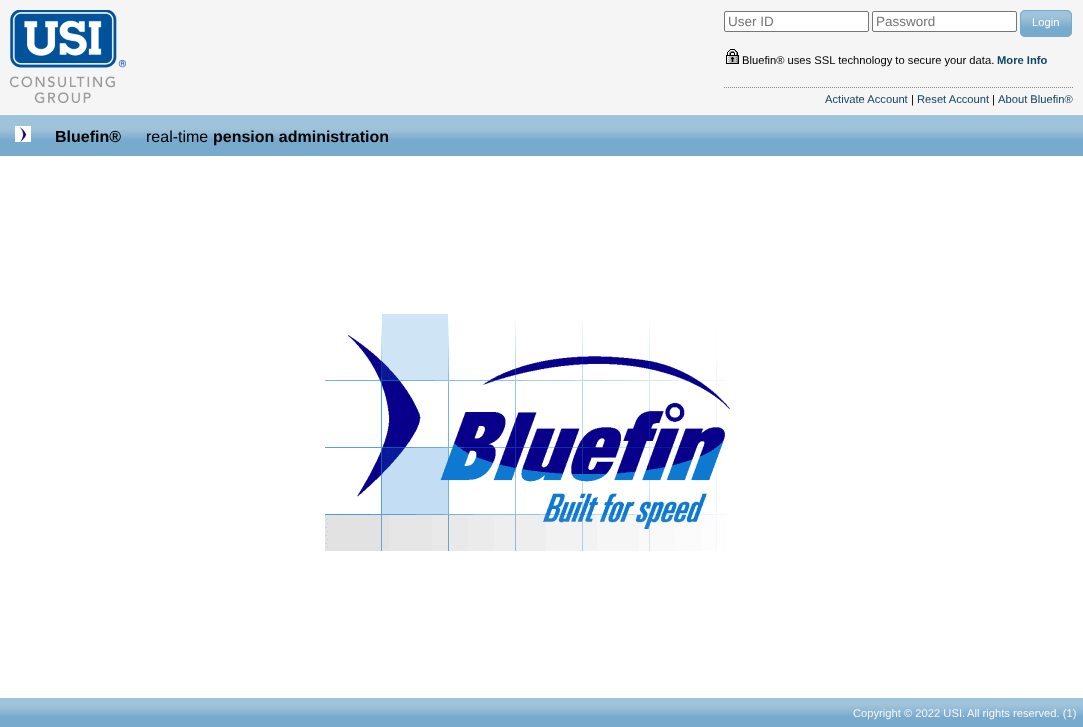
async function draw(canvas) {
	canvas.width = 1083;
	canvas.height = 727;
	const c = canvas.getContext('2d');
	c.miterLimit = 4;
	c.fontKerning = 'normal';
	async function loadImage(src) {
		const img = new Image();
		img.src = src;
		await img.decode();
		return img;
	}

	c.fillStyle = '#fff';
	c.fillRect(0, 0, 1083, 727);
	c.fillStyle = '#f5f5f5';
	c.fillRect(0, 0, 1083, 115);
	c.drawImage(await loadImage('img1.png'), 10, 10, 116, 93);
	c.beginPath();
	c.moveTo(724, 87.5);
	c.lineTo(1073, 87.5);
	c.strokeStyle = '#888';
	c.setLineDash([1, 1]);
	c.stroke();
	c.fillStyle = '#fff';
	c.beginPath();
	c.roundRect(724.5, 11.5, 144, 20, 1.5);
	c.fill();
	c.strokeStyle = '#767676';
	c.setLineDash([]);
	c.stroke();
	c.font = '13.5px Liberation Sans';
	c.fillStyle = '#757575';
	c.fillText('User ID', 728, 26);
	c.fillStyle = '#fff';
	c.beginPath();
	c.roundRect(872.5, 11.5, 144, 20, 1.5);
	c.fill();
	c.stroke();
	c.fillStyle = '#757575';
	c.fillText('Password', 876, 26);
	c.drawImage(await loadImage('img2.png'), 1020, 10, 52, 27);
	c.beginPath();
	c.roundRect(1020.5, 10.5, 51, 26, 4.5);
	c.strokeStyle = '#7ac';
	c.stroke();
	c.font = '11.2px Liberation Sans';
	c.fillStyle = '#fff';
	c.fillText('Login', 1032, 26);
	c.drawImage(await loadImage('img3.png'), 726, 49, 13, 15);
	c.fillStyle = '#000';
	c.fillText('Bluefin® uses SSL technology to secure your data.', 742, 64);
	c.font = 'bold 11.2px Liberation Sans';
	c.fillStyle = '#146';
	c.fillText('More Info', 997, 64);
	c.font = '11.2px Liberation Sans';
	c.fillText('Activate Account', 825, 103);
	c.fillStyle = '#000';
	c.fillText('|', 911, 103);
	c.fillStyle = '#146';
	c.fillText('Reset Account', 917, 103);
	c.fillStyle = '#000';
	c.fillText('|', 992, 103);
	c.fillStyle = '#146';
	c.fillText('About Bluefin®', 998, 103);
	c.fillStyle = '#7ac';
	c.fillRect(0, 139, 1083, 17);
	c.drawImage(await loadImage('img4.png'), 0, 115, 1083, 24);
	c.drawImage(await loadImage('img5.png'), 15, 126, 16, 16);
	c.font = 'bold 16px Liberation Sans';
	c.fillStyle = '#000';
	c.fillText('Bluefin®', 55, 142);
	c.font = '16px Liberation Sans';
	c.fillText('real-time', 146, 142);
	c.font = 'bold 16px Liberation Sans';
	c.fillText('pension administration', 213, 142);
	c.drawImage(await loadImage('img6.png'), 325, 314, 405, 237);
	c.fillStyle = '#7ac';
	c.fillRect(0, 716, 1083, 11);
	c.drawImage(await loadImage('img7.png'), 0, 698, 1083, 18);
	c.font = '11.2px Liberation Sans';
	c.fillStyle = '#f5f5f5';
	c.fillText('Copyright © 2022 USI.', 853, 717);
	c.fillText('All rights reserved. (1)', 967, 717);
}

draw(document.querySelector('canvas'));
